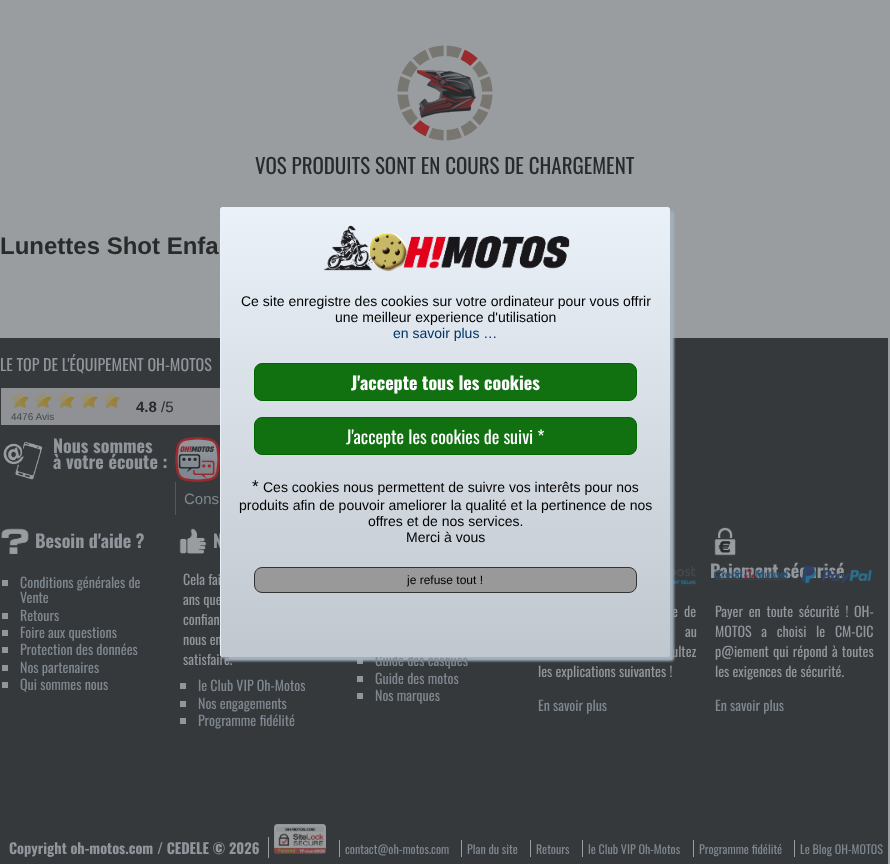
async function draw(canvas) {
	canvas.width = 890;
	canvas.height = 864;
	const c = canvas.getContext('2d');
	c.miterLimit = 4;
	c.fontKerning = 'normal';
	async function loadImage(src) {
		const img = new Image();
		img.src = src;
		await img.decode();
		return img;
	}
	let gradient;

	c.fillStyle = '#9a9d9f';
	c.fillRect(0, 0, 890, 864);
	c.drawImage(await loadImage('img1.png'), 397, 45, 96, 96);
	c.font = '21px Oswald';
	c.fillStyle = '#282a2c';
	c.fillText('VOS PRODUITS SONT EN COURS DE CHARGEMENT', 255, 174);
	c.font = 'bold 24px Liberation Sans';
	c.fillText('Lunettes Shot Enfa', 0, 254);
	c.fillStyle = '#35393c';
	c.fillRect(0, 338, 888, 526);
	c.fillStyle = '#91969c';
	c.fillRect(357, 659, 6, 5);
	c.drawImage(await loadImage('img9.png'), 672, 565, 24, 20);
	c.fillStyle = '#a2b0bc';
	c.filter = 'blur(1px)';
	c.beginPath();
	c.roundRect(224, 211, 450, 450, 3);
	c.fill();
	c.filter = 'none';
	c.font = 'bold 18px Oswald';
	c.fillStyle = '#91969c';
	c.fillText('N', 213, 548);
	c.font = '14px Oswald';
	for (const [text, x, y] of [
		['ans que', 183, 605],
		['nous en', 183, 645],
		['satisfaire.', 183, 665],
	]) {
		c.fillText(text, x, y);
	}
	c.fillStyle = '#7f878f';
	c.fillText('Guide des casques', 375, 666);
	c.fillStyle = '#c3d0dc';
	c.beginPath();
	c.roundRect(220, 207, 450, 450, 3);
	c.fill();
	c.save();
	c.beginPath();
	c.roundRect(220, 207, 450, 450, 3);
	c.clip();
	gradient = c.createLinearGradient(446, 208, 446, 657);
	gradient.addColorStop(0, '#eaf1f9');
	gradient.addColorStop(1, '#c1c7ce');
	c.fillStyle = gradient;
	c.beginPath();
	c.roundRect(221, 208, 449, 449, [0, 0, 3, 0]);
	c.fill();
	c.restore();
	c.fillStyle = '#eaf1f9';
	c.beginPath();
	c.moveTo(223, 207);
	c.lineTo(667, 207);
	c.bezierCurveTo(669, 207, 670, 208, 670, 210);
	c.lineTo(670, 654);
	c.bezierCurveTo(670, 656, 669, 657, 667, 657);
	c.lineTo(223, 657);
	c.bezierCurveTo(221, 657, 220, 656, 220, 654);
	c.lineTo(220, 210);
	c.bezierCurveTo(220, 208, 221, 207, 223, 207);
	c.closePath();
	c.moveTo(223, 208);
	c.lineTo(667, 208);
	c.bezierCurveTo(669, 208, 670, 209, 670, 210);
	c.lineTo(670, 654);
	c.bezierCurveTo(670, 656, 669, 657, 667, 657);
	c.lineTo(223, 657);
	c.bezierCurveTo(222, 657, 221, 656, 221, 654);
	c.lineTo(221, 210);
	c.bezierCurveTo(221, 209, 222, 208, 223, 208);
	c.closePath();
	c.fill('evenodd');
	c.drawImage(await loadImage('img2.png'), 323, 225, 247, 47);
	c.font = '14px Liberation Sans';
	c.fillStyle = '#000';
	c.fillText('Ce site enregistre des cookies sur votre ordinateur pour vous offrir', 241, 306);
	c.fillText('une meilleur experience d\'utilisation', 335, 322);
	c.fillStyle = '#036';
	c.fillText('en savoir plus …', 393, 338);
	c.fillStyle = '#117111';
	c.beginPath();
	c.roundRect(254.5, 363.5, 382, 37, 7.5);
	c.fill();
	c.strokeStyle = '#060';
	c.stroke();
	c.font = 'bold 18px Oswald';
	c.fillStyle = '#fff';
	c.fillText('J\'accepte tous les cookies', 351, 390);
	c.fillStyle = '#117111';
	c.beginPath();
	c.roundRect(254.5, 417.5, 382, 37, 7.5);
	c.fill();
	c.stroke();
	c.font = '18px Oswald';
	c.fillStyle = '#fff';
	c.fillText('J\'accepte les cookies de suivi *', 346, 444);
	c.font = '17px Liberation Sans';
	c.fillStyle = '#000';
	c.fillText('*', 252, 492);
	c.font = '14px Liberation Sans';
	for (const [text, x, y] of [
		['Ces cookies nous permettent de suivre vos interêts pour nos', 263, 492],
		['produits afin de pouvoir ameliorer la qualité et la pertinence de nos', 239, 510],
		['offres et de nos services.', 368, 526],
		['Merci à vous', 406, 542],
	]) {
		c.fillText(text, x, y);
	}
	c.fillStyle = '#999';
	c.beginPath();
	c.roundRect(254.5, 567.5, 382, 25, 7.5);
	c.fill();
	c.strokeStyle = '#333';
	c.stroke();
	c.font = '12px Liberation Sans';
	c.fillStyle = '#000';
	c.fillText('je refuse tout !', 407, 584);
	c.font = '16px Oswald';
	c.fillStyle = '#91969c';
	c.fillText('LE TOP DE L\'ÉQUIPEMENT OH-MOTOS', 0, 371);
	c.fillStyle = '#8f9194';
	c.fillRect(1, 388, 219, 37);
	c.font = 'bold 15px Liberation Sans';
	c.fillStyle = '#282a2c';
	c.fillText('4.8', 136, 412);
	c.font = '15px Liberation Sans';
	c.fillText('/5', 161, 412);
	c.drawImage(await loadImage('img3.png'), 12, 395, 109, 13);
	c.drawImage(await loadImage('img4.png'), 11, 391, 106, 17);
	c.font = '10px Liberation Sans';
	c.fillStyle = '#44494e';
	c.fillText('4476 Avis', 11, 420);
	c.drawImage(await loadImage('img5.png'), 3, 442, 40, 38);
	c.font = 'bold 18px Oswald';
	c.fillStyle = '#91969c';
	c.fillText('Nous sommes', 53, 453);
	c.fillText('à votre écoute :', 53, 469);
	c.drawImage(await loadImage('img6.png'), 175, 437, 45, 45);
	c.fillStyle = '#56585a';
	c.fillRect(175, 482, 1, 33);
	c.font = '15px Liberation Sans';
	c.fillStyle = '#7f878f';
	c.fillText('Cons', 184, 504);
	c.drawImage(await loadImage('img7.png'), 1, 528, 28, 27);
	c.font = 'bold 18px Oswald';
	c.fillStyle = '#91969c';
	c.fillText('Besoin d\'aide ?', 35, 548);
	c.fillRect(2, 580, 6, 6);
	c.font = '14px Oswald';
	c.fillStyle = '#7f878f';
	c.fillText('Conditions générales de', 20, 588);
	c.fillText('Vente', 20, 603);
	c.fillStyle = '#91969c';
	c.fillRect(2, 613, 6, 6);
	c.fillStyle = '#7f878f';
	c.fillText('Retours', 20, 621);
	c.fillStyle = '#91969c';
	c.fillRect(2, 630, 6, 6);
	c.fillStyle = '#7f878f';
	c.fillText('Foire aux questions', 20, 638);
	c.fillStyle = '#91969c';
	c.fillRect(2, 647, 6, 6);
	c.fillStyle = '#7f878f';
	c.fillText('Protection des données', 20, 655);
	c.fillStyle = '#91969c';
	c.fillRect(2, 665, 6, 6);
	c.fillStyle = '#7f878f';
	c.fillText('Nos partenaires', 20, 673);
	c.fillStyle = '#91969c';
	c.fillRect(2, 682, 6, 6);
	c.fillStyle = '#7f878f';
	c.fillText('Qui sommes nous', 20, 690);
	c.drawImage(await loadImage('img8.png'), 179, 528, 28, 26);
	c.fillStyle = '#91969c';
	c.fillText('Cela fai', 183, 585);
	c.fillText('confian', 183, 625);
	c.fillRect(180, 683, 6, 6);
	c.fillStyle = '#7f878f';
	c.fillText('le Club VIP Oh-Motos', 198, 691);
	c.fillStyle = '#91969c';
	c.fillRect(180, 701, 6, 6);
	c.fillStyle = '#7f878f';
	c.fillText('Nos engagements', 198, 709);
	c.fillStyle = '#91969c';
	c.fillRect(180, 718, 6, 6);
	c.fillStyle = '#7f878f';
	c.fillText('Programme fidélité', 198, 726);
	c.fillStyle = '#91969c';
	c.fillRect(357, 676, 6, 6);
	c.fillStyle = '#7f878f';
	c.fillText('Guide des motos', 375, 684);
	c.fillStyle = '#91969c';
	c.fillRect(357, 693, 6, 6);
	c.fillStyle = '#7f878f';
	c.fillText('Nos marques', 375, 701);
	c.wordSpacing = '3px';
	c.fillStyle = '#91969c';
	c.fillText('e de', 672, 617);
	c.wordSpacing = '8px';
	c.fillText('au', 685, 637);
	c.wordSpacing = '1px';
	c.fillText('ultez', 672, 657);
	c.wordSpacing = '0px';
	c.fillText('les explications suivantes !', 538, 677);
	c.fillStyle = '#7f878f';
	c.fillText('En savoir plus', 538, 711);
	c.drawImage(await loadImage('img10.png'), 714, 527, 22, 29);
	c.font = 'bold 18px Oswald';
	c.fillStyle = '#91969c';
	c.fillText('Paiement sécurisé', 710, 578);
	c.drawImage(await loadImage('img11.png'), 714, 565, 158, 19);
	c.wordSpacing = '2.5px';
	c.font = '14px Oswald';
	c.fillText('Payer en toute sécurité ! OH-', 715, 617);
	c.wordSpacing = '6.5px';
	c.fillText('MOTOS a choisi le CM-CIC', 715, 637);
	c.wordSpacing = '1px';
	c.fillText('p@iement qui répond à toutes', 715, 657);
	c.wordSpacing = '0px';
	c.fillText('les exigences de sécurité.', 715, 677);
	c.fillStyle = '#7f878f';
	c.fillText('En savoir plus', 715, 711);
	c.font = 'bold 14.4px Oswald';
	c.fillStyle = '#91969c';
	c.fillText('Copyright oh-motos.com / CEDELE © 2026', 9, 854);
	c.fillStyle = '#9a9d9f';
	c.fillRect(268, 837, 1, 21);
	c.drawImage(await loadImage('img12.png'), 274, 824, 52, 30);
	c.font = '12px Oswald';
	c.fillStyle = '#7f878f';
	c.fillText('contact@oh-motos.com', 345, 854);
	c.fillStyle = '#9a9d9f';
	c.fillRect(339, 840, 1, 17);
	c.fillStyle = '#7f878f';
	c.fillText('Plan du site', 467, 854);
	c.fillStyle = '#9a9d9f';
	c.fillRect(461, 840, 1, 17);
	c.fillStyle = '#7f878f';
	c.fillText('Retours', 536, 854);
	c.fillStyle = '#9a9d9f';
	c.fillRect(530, 840, 1, 17);
	c.fillStyle = '#7f878f';
	c.fillText('le Club VIP Oh-Motos', 588, 854);
	c.fillStyle = '#9a9d9f';
	c.fillRect(582, 840, 1, 17);
	c.fillStyle = '#7f878f';
	c.fillText('Programme fidélité', 699, 854);
	c.fillStyle = '#9a9d9f';
	c.fillRect(693, 840, 1, 17);
	c.fillStyle = '#7f878f';
	c.fillText('Le Blog OH-MOTOS', 800, 854);
	c.fillStyle = '#9a9d9f';
	c.fillRect(794, 840, 1, 17);
}

draw(document.querySelector('canvas'));
